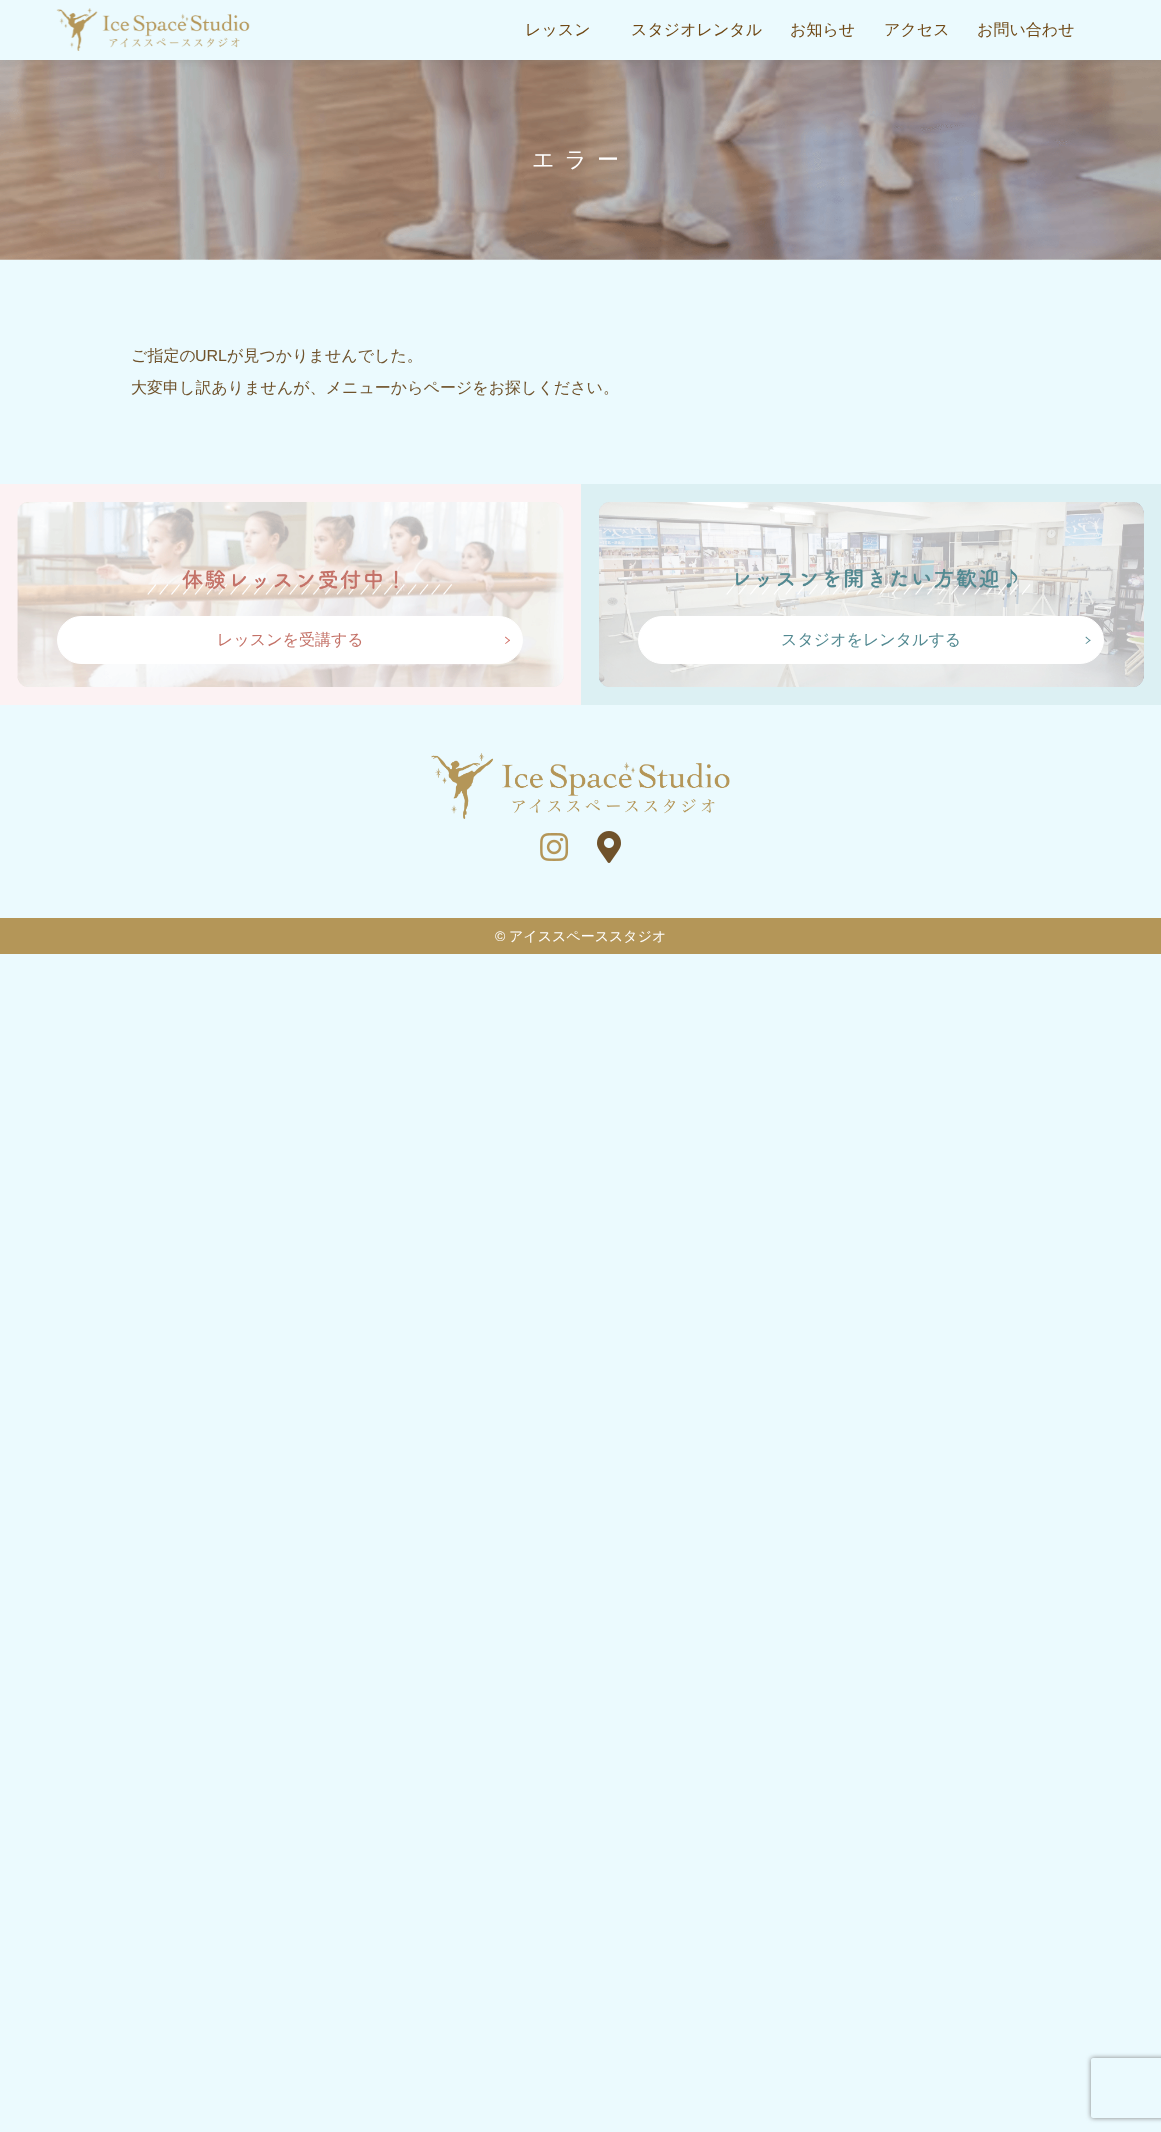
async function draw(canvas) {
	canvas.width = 1161;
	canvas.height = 2132;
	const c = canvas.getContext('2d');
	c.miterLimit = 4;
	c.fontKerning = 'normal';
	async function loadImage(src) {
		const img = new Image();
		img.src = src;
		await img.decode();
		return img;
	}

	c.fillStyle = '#ebfafe';
	c.fillRect(0, 0, 1161, 2132);
	c.drawImage(await loadImage('img2.png'), 0, 60, 1161, 200);
	c.save();
	c.beginPath();
	c.rect(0, 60, 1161, 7);
	c.clip();
	c.fillStyle = '#7070704d';
	c.filter = 'blur(5px)';
	c.beginPath();
	c.rect(0, 0, 1161, 60);
	c.fill();
	c.filter = 'none';
	c.restore();
	c.drawImage(await loadImage('img1.png'), 56, 8, 194, 43);
	c.font = '500 16px WenQuanYi Zen Hei';
	c.fillStyle = '#6f4815';
	for (const [text, x, y] of [
		['レッスン', 525, 35],
		['スタジオレンタル', 631, 35],
		['お知らせ', 790, 35],
		['アクセス', 884, 35],
		['お問い合わせ', 977, 35],
	]) {
		c.fillText(text, x, y);
	}
	c.letterSpacing = '10px';
	c.font = '500 22px WenQuanYi Zen Hei';
	c.fillStyle = '#fff';
	c.fillText('エラー', 532, 167);
	c.letterSpacing = '0px';
	c.font = '500 16px WenQuanYi Zen Hei';
	c.fillStyle = '#6f522b';
	c.fillText('ご指定の', 131, 361);
	c.font = '16px Liberation Sans';
	c.fillText('URL', 195, 361);
	c.font = '500 16px WenQuanYi Zen Hei';
	c.fillText('が見つかりませんでした。', 227, 361);
	c.fillText('大変申し訳ありませんが、メニューからページをお探しください。', 131, 393);
	c.drawImage(await loadImage('img3.png'), 0, 484, 581, 221);
	c.fillStyle = '#fff';
	c.beginPath();
	c.roundRect(57.5, 616.5, 465, 47, 23.5);
	c.fill();
	c.strokeStyle = '#fff';
	c.stroke();
	c.fillStyle = '#c47268';
	c.fillText('レッスンを受講する', 217, 645);
	c.fillStyle = '#d16d64';
	c.beginPath();
	c.moveTo(505, 643.5);
	c.lineTo(509.5, 639.5);
	c.lineTo(510, 640.5);
	c.lineTo(505.5, 644);
	c.closePath();
	c.fill();
	c.beginPath();
	c.moveTo(505.5, 636.5);
	c.lineTo(510, 640.5);
	c.lineTo(509.5, 641);
	c.lineTo(505, 637.5);
	c.closePath();
	c.fill();
	c.drawImage(await loadImage('img4.png'), 581, 484, 580, 221);
	c.fillStyle = '#fff';
	c.beginPath();
	c.roundRect(638.5, 616.5, 465, 47, 23.5);
	c.fill();
	c.stroke();
	c.fillStyle = '#528991';
	c.fillText('スタジオをレンタルする', 781, 645);
	c.beginPath();
	c.moveTo(1085.5, 643.5);
	c.lineTo(1090, 639.5);
	c.lineTo(1090.5, 640.5);
	c.lineTo(1086, 644);
	c.closePath();
	c.fill();
	c.beginPath();
	c.moveTo(1086, 636.5);
	c.lineTo(1090.5, 640.5);
	c.lineTo(1090, 641);
	c.lineTo(1085.5, 637.5);
	c.closePath();
	c.fill();
	c.drawImage(await loadImage('img5.png'), 431, 753, 299, 66);
	c.drawImage(await loadImage('img6.png'), 540, 833, 29, 28);
	c.drawImage(await loadImage('img7.png'), 597, 831, 24, 32);
	c.fillStyle = '#b49658';
	c.fillRect(0, 918, 1161, 36);
	c.font = '14px Liberation Sans';
	c.fillStyle = '#fff';
	c.fillText('©', 495, 941);
	c.font = '500 14px WenQuanYi Zen Hei';
	c.fillText('アイススペーススタジオ', 509, 941);
	c.save();
	c.beginPath();
	c.moveTo(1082, 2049);
	c.lineTo(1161, 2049);
	c.lineTo(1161, 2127);
	c.lineTo(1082, 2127);
	c.closePath();
	c.moveTo(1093, 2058);
	c.lineTo(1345, 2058);
	c.bezierCurveTo(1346, 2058, 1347, 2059, 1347, 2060);
	c.lineTo(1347, 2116);
	c.bezierCurveTo(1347, 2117, 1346, 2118, 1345, 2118);
	c.lineTo(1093, 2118);
	c.bezierCurveTo(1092, 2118, 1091, 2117, 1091, 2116);
	c.lineTo(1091, 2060);
	c.bezierCurveTo(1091, 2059, 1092, 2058, 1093, 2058);
	c.closePath();
	c.clip('evenodd');
	c.fillStyle = '#808080';
	c.filter = 'blur(2.5px)';
	c.beginPath();
	c.roundRect(1091, 2058, 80, 60, 2);
	c.fill();
	c.filter = 'none';
	c.restore();
}

draw(document.querySelector('canvas'));
